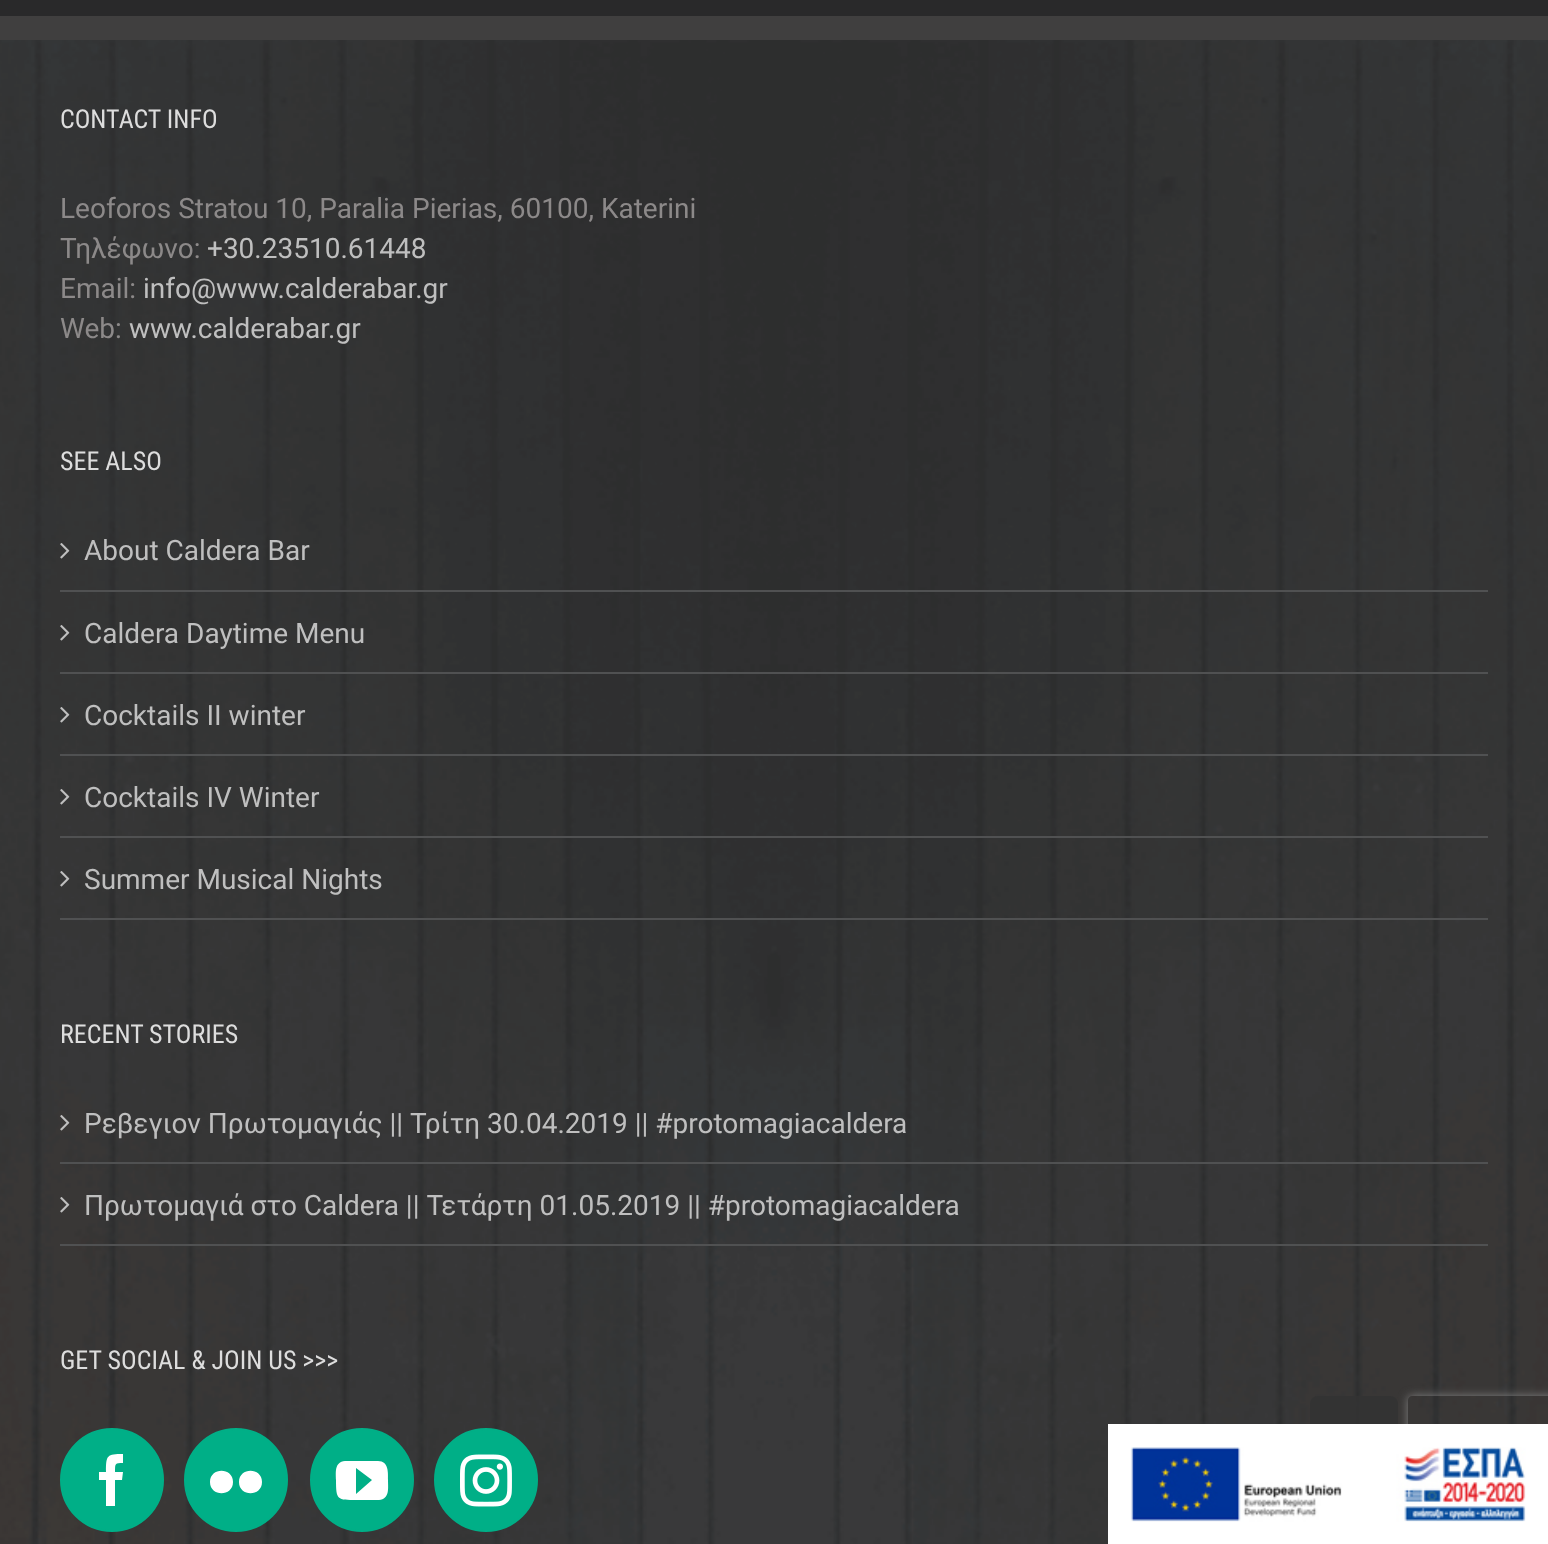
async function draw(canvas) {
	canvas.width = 1548;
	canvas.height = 1544;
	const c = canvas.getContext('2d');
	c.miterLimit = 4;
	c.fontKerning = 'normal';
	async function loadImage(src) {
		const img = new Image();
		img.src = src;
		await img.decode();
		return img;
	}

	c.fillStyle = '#29292a';
	c.fillRect(0, 0, 1548, 1544);
	c.fillStyle = '#2d2d2d';
	c.fillRect(0, 40, 1548, 1504);
	c.drawImage(await loadImage('img1.png'), 0, 40, 1548, 1504);
	c.fillStyle = '#403f3f';
	c.fillRect(0, 16, 1548, 24);
	c.font = '26px Roboto Condensed';
	c.fillStyle = '#ddd';
	c.fillText('CONTACT INFO', 60, 128);
	c.font = '28px Roboto';
	c.fillStyle = '#8c8989';
	c.fillText('Leoforos Stratou 10, Paralia Pierias, 60100, Katerini', 60, 218);
	c.fillText('Τηλέφωνο:', 60, 258);
	c.fillStyle = '#bfbfbf';
	c.fillText('+30.23510.61448', 207, 258);
	c.fillStyle = '#8c8989';
	c.fillText('Email:', 60, 298);
	c.fillStyle = '#bfbfbf';
	c.fillText('info@www.calderabar.gr', 143, 298);
	c.fillStyle = '#8c8989';
	c.fillText('Web:', 60, 338);
	c.fillStyle = '#bfbfbf';
	c.fillText('www.calderabar.gr', 129, 338);
	c.font = '26px Roboto Condensed';
	c.fillStyle = '#ddd';
	c.fillText('SEE ALSO', 60, 470);
	c.fillStyle = '#505152';
	c.fillRect(60, 590, 1428, 2);
	c.drawImage(await loadImage('img2.png'), 60, 543, 10, 16);
	c.font = '28px Roboto';
	c.fillStyle = '#bfbfbf';
	c.fillText('About Caldera Bar', 84, 560);
	c.fillStyle = '#505152';
	c.fillRect(60, 672, 1428, 2);
	c.drawImage(await loadImage('img3.png'), 60, 625, 10, 16);
	c.fillStyle = '#bfbfbf';
	c.fillText('Caldera Daytime Menu', 84, 643);
	c.fillStyle = '#505152';
	c.fillRect(60, 754, 1428, 2);
	c.drawImage(await loadImage('img4.png'), 60, 707, 10, 16);
	c.fillStyle = '#bfbfbf';
	c.fillText('Cocktails II winter', 84, 725);
	c.fillStyle = '#505152';
	c.fillRect(60, 836, 1428, 2);
	c.drawImage(await loadImage('img5.png'), 60, 789, 10, 16);
	c.fillStyle = '#bfbfbf';
	c.fillText('Cocktails IV Winter', 84, 807);
	c.fillStyle = '#505152';
	c.fillRect(60, 918, 1428, 2);
	c.drawImage(await loadImage('img6.png'), 60, 871, 10, 16);
	c.fillStyle = '#bfbfbf';
	c.fillText('Summer Musical Nights', 84, 889);
	c.font = '26px Roboto Condensed';
	c.fillStyle = '#ddd';
	c.fillText('RECENT STORIES', 60, 1043);
	c.fillStyle = '#505152';
	c.fillRect(60, 1162, 1428, 2);
	c.drawImage(await loadImage('img7.png'), 60, 1115, 10, 16);
	c.font = '28px Roboto';
	c.fillStyle = '#bfbfbf';
	c.fillText('Ρεβεγιον Πρωτομαγιάς || Τρίτη 30.04.2019 || #protomagiacaldera', 84, 1133);
	c.fillStyle = '#505152';
	c.fillRect(60, 1244, 1428, 2);
	c.drawImage(await loadImage('img8.png'), 60, 1197, 10, 16);
	c.fillStyle = '#bfbfbf';
	c.fillText('Πρωτομαγιά στο Caldera || Τετάρτη 01.05.2019 || #protomagiacaldera', 84, 1215);
	c.font = '26px Roboto Condensed';
	c.fillStyle = '#ddd';
	c.fillText('GET SOCIAL & JOIN US >>>', 60, 1369);
	c.fillStyle = '#00af87';
	c.beginPath();
	c.arc(112, 1480, 51, 0, 2 * Math.PI);
	c.fill();
	c.strokeStyle = '#00af87';
	c.lineWidth = 2;
	c.stroke();
	c.fillStyle = '#fff';
	c.beginPath();
	c.moveTo(115, 1506);
	c.lineTo(106, 1506);
	c.lineTo(106, 1480);
	c.lineTo(99, 1480);
	c.lineTo(99, 1472);
	c.lineTo(106, 1472);
	c.bezierCurveTo(106, 1455, 107, 1454, 123, 1454);
	c.lineTo(123, 1463);
	c.bezierCurveTo(115, 1463, 115, 1463, 115, 1472);
	c.lineTo(123, 1472);
	c.lineTo(122, 1480);
	c.lineTo(115, 1480);
	c.closePath();
	c.fill();
	c.fillStyle = '#00af87';
	c.beginPath();
	c.arc(236, 1480, 51, 0, 2 * Math.PI);
	c.fill();
	c.stroke();
	c.fillStyle = '#fff';
	c.beginPath();
	c.moveTo(210, 1482);
	c.bezierCurveTo(210, 1467, 233, 1467, 233, 1482);
	c.bezierCurveTo(233, 1497, 210, 1497, 210, 1482);
	c.closePath();
	c.moveTo(239, 1482);
	c.bezierCurveTo(239, 1467, 262, 1467, 262, 1482);
	c.bezierCurveTo(262, 1497, 239, 1497, 239, 1482);
	c.closePath();
	c.fill();
	c.fillStyle = '#00af87';
	c.beginPath();
	c.arc(362, 1480, 51, 0, 2 * Math.PI);
	c.fill();
	c.stroke();
	c.fillStyle = '#fff';
	c.beginPath();
	c.moveTo(378, 1461);
	c.lineTo(345, 1461);
	c.bezierCurveTo(334, 1462, 336, 1473, 336, 1480);
	c.bezierCurveTo(336, 1500, 337, 1500, 357, 1500);
	c.lineTo(379, 1500);
	c.bezierCurveTo(390, 1499, 388, 1488, 388, 1480);
	c.bezierCurveTo(388, 1473, 389, 1461, 378, 1461);
	c.closePath();
	c.moveTo(356, 1494);
	c.lineTo(356, 1468);
	c.lineTo(372, 1480);
	c.closePath();
	c.fill();
	c.fillStyle = '#00af87';
	c.beginPath();
	c.arc(486, 1480, 51, 0, 2 * Math.PI);
	c.fill();
	c.stroke();
	c.drawImage(await loadImage('img9.png'), 460, 1454, 52, 53);
	c.save();
	c.beginPath();
	c.moveTo(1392, 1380);
	c.lineTo(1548, 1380);
	c.lineTo(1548, 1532);
	c.lineTo(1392, 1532);
	c.closePath();
	c.moveTo(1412, 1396);
	c.lineTo(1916, 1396);
	c.bezierCurveTo(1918, 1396, 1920, 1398, 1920, 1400);
	c.lineTo(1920, 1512);
	c.bezierCurveTo(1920, 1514, 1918, 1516, 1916, 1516);
	c.lineTo(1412, 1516);
	c.bezierCurveTo(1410, 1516, 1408, 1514, 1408, 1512);
	c.lineTo(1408, 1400);
	c.bezierCurveTo(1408, 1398, 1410, 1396, 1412, 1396);
	c.closePath();
	c.clip('evenodd');
	c.fillStyle = '#808080';
	c.filter = 'blur(5px)';
	c.beginPath();
	c.roundRect(1408, 1396, 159, 120, 4);
	c.fill();
	c.filter = 'none';
	c.restore();
	c.fillStyle = '#333333e6';
	c.beginPath();
	c.roundRect(1310, 1396, 88, 88, 8);
	c.fill();
	c.fillStyle = '#fff';
	c.fillRect(1108, 1424, 440, 120);
	c.drawImage(await loadImage('img10.png'), 1130, 1447, 396, 75);
}

draw(document.querySelector('canvas'));
